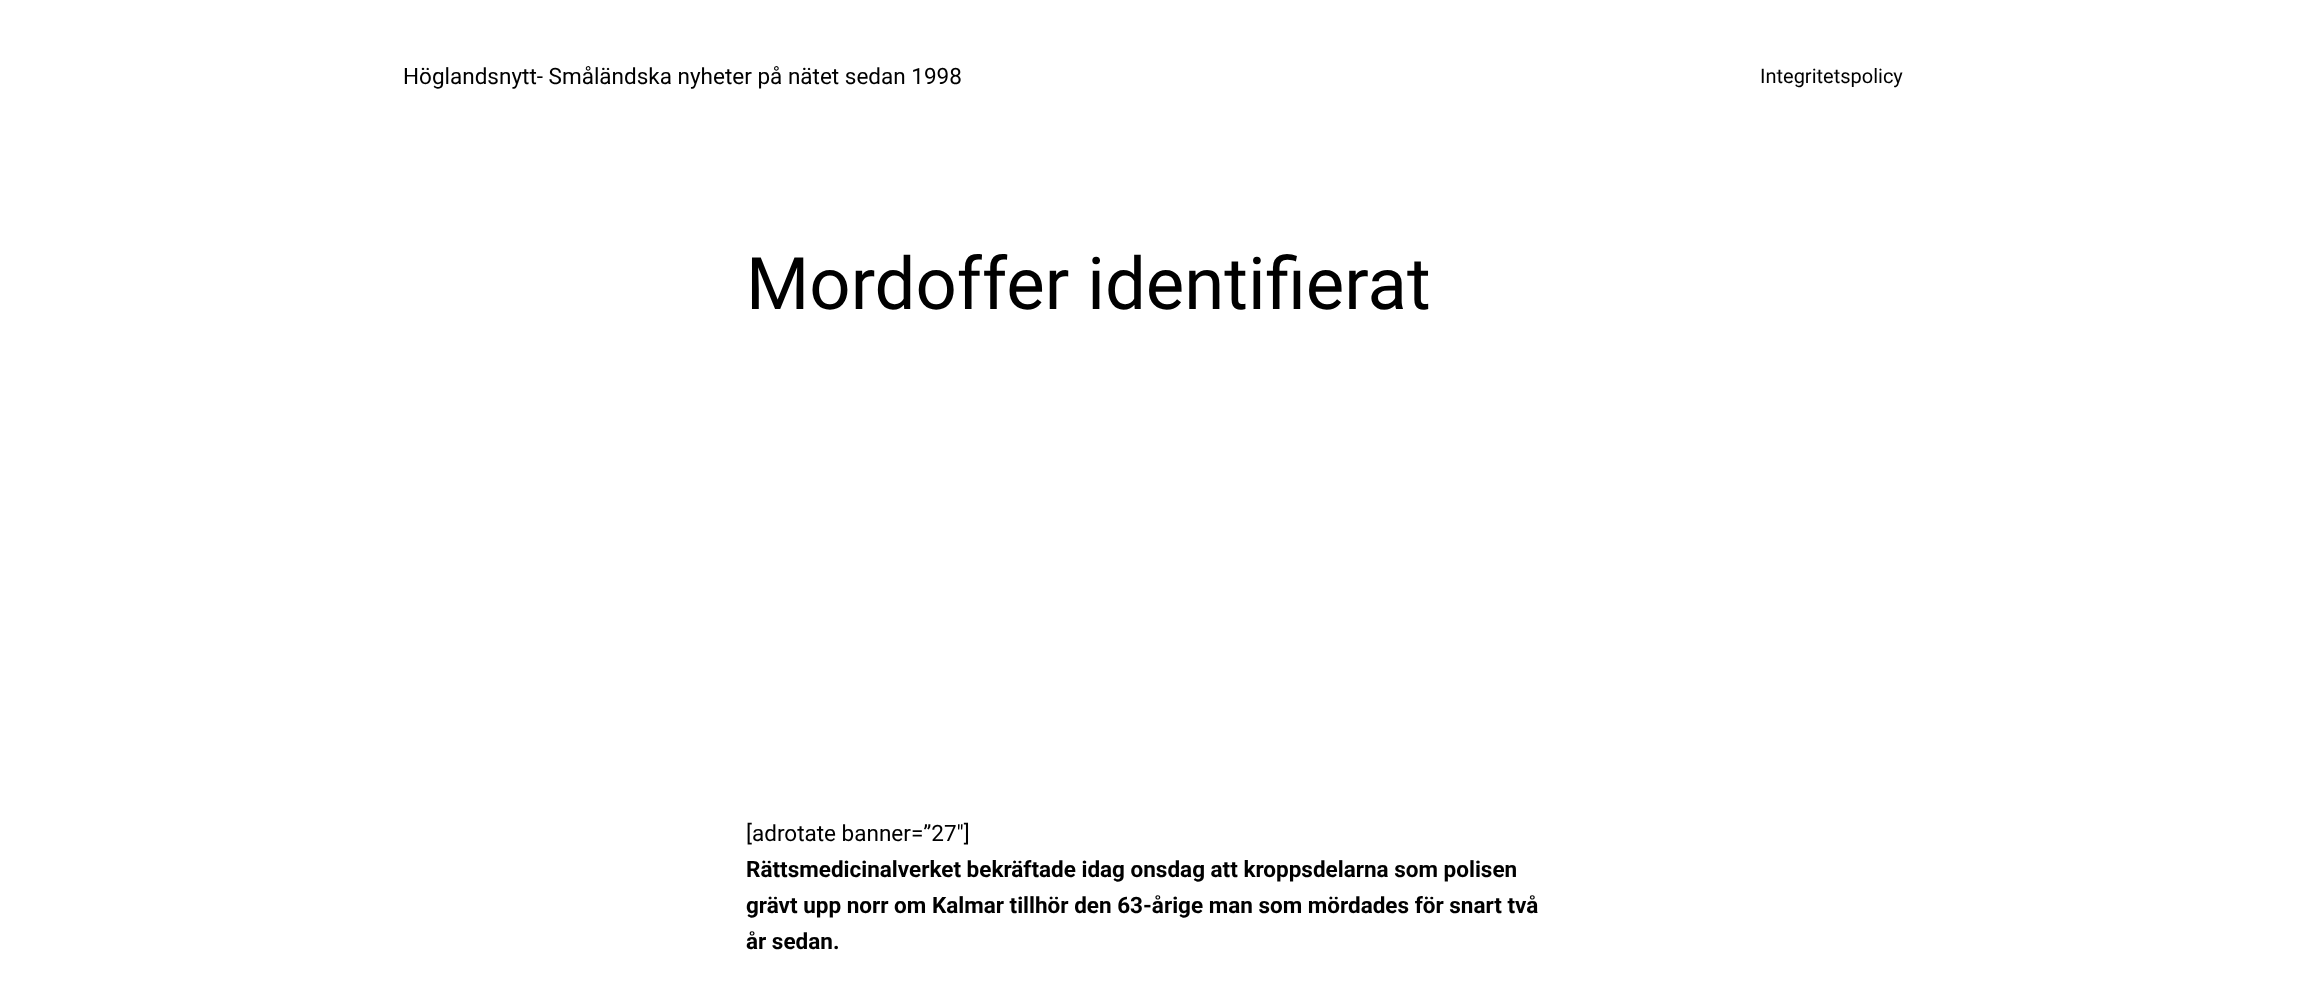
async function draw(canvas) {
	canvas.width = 2304;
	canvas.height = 997;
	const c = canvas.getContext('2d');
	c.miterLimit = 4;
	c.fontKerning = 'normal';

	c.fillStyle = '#fff';
	c.fillRect(0, 0, 2304, 997);
	c.font = '22.5px Roboto';
	c.fillStyle = '#000';
	c.fillText('Höglandsnytt- Småländska nyheter på nätet sedan 1998', 403, 84);
	c.font = '20px Roboto';
	c.fillText('Integritetspolicy', 1760, 83);
	c.font = '72.5px Roboto';
	c.fillText('Mordoffer identifierat', 746, 309);
	c.font = '22.5px Roboto';
	c.fillText('[adrotate banner=”27″]', 746, 841);
	c.font = 'bold 22.5px Roboto';
	for (const [text, x, y] of [
		['Rättsmedicinalverket bekräftade idag onsdag att kroppsdelarna som polisen', 746, 877],
		['grävt upp norr om Kalmar tillhör den 63-årige man som mördades för snart två', 746, 913],
		['år sedan.', 746, 949],
	]) {
		c.fillText(text, x, y);
	}
}

draw(document.querySelector('canvas'));
